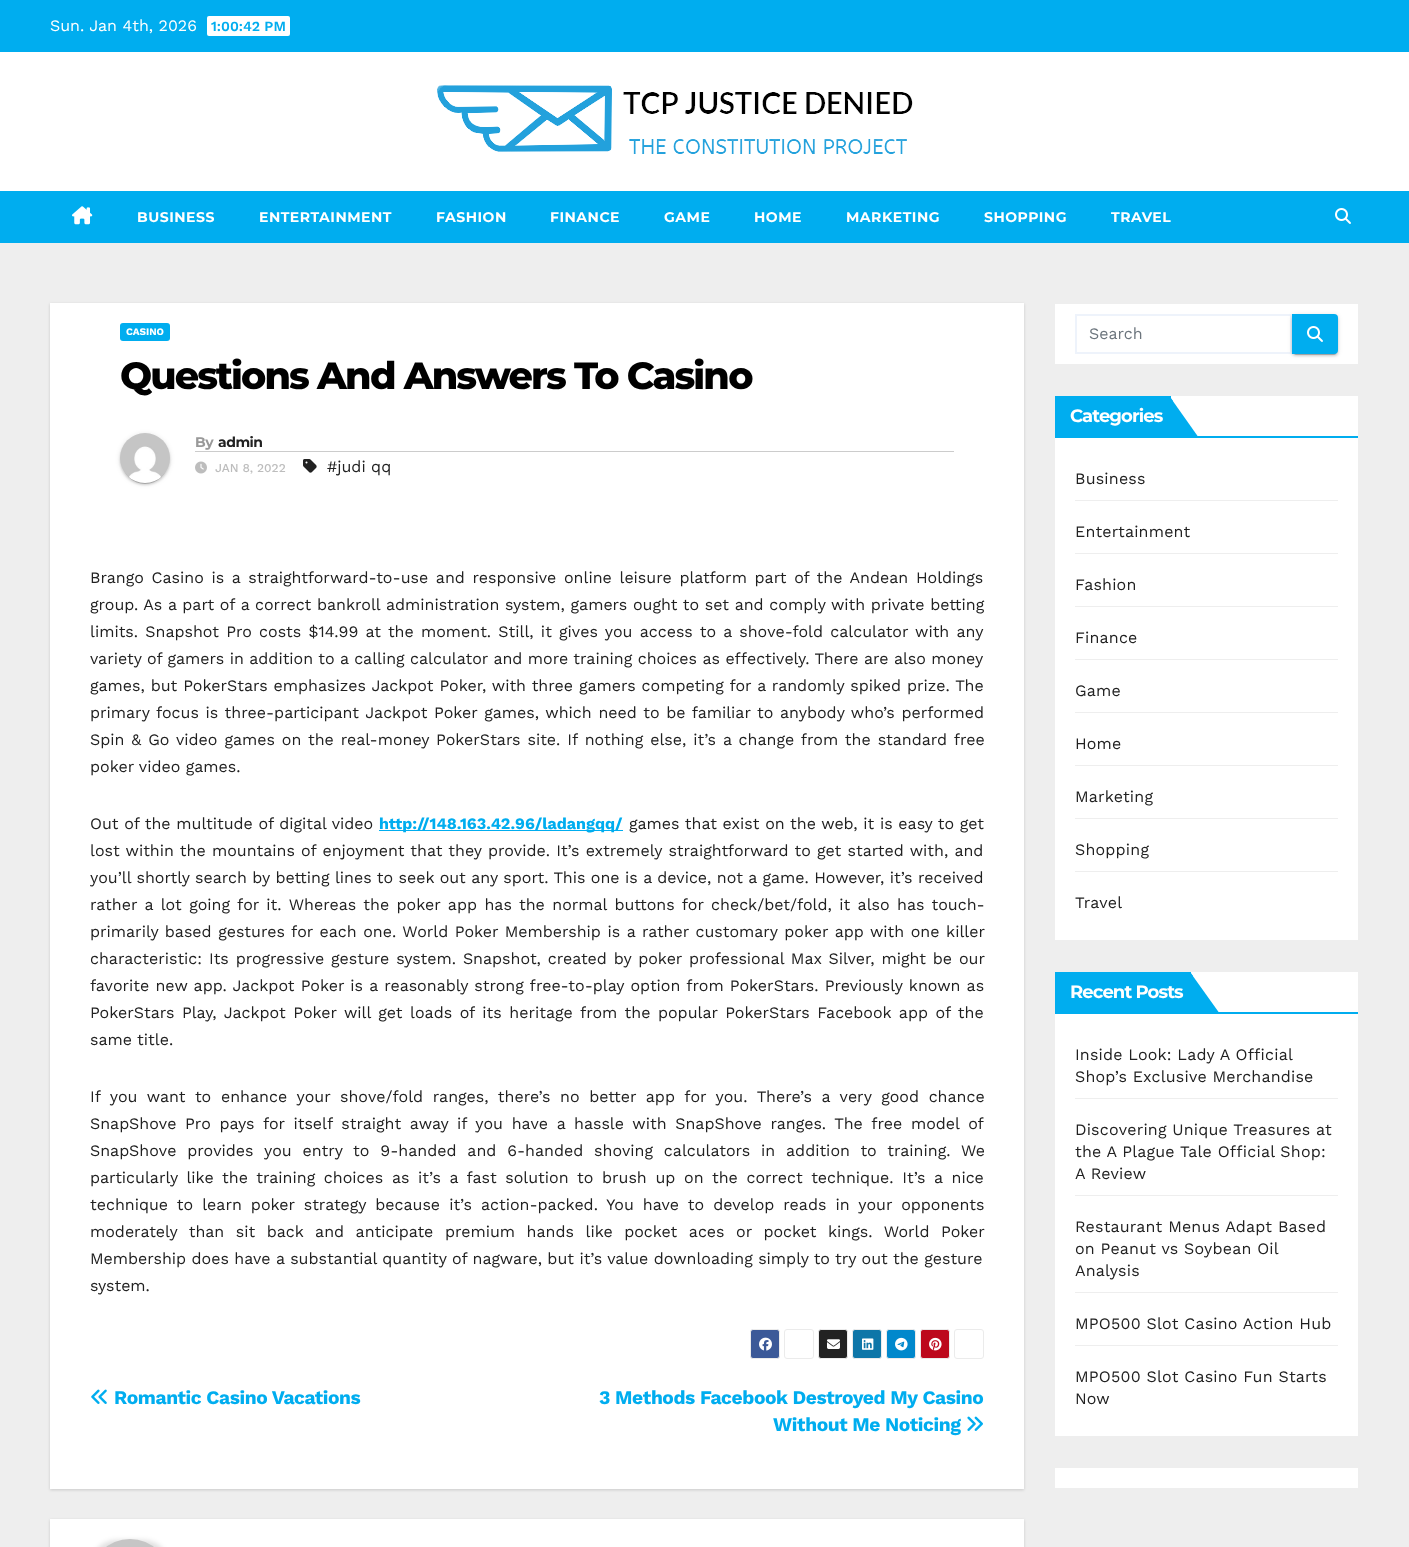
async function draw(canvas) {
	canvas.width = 1409;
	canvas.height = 1547;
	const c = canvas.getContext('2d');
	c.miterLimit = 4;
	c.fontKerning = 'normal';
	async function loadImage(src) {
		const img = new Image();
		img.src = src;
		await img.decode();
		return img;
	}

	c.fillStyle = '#eee';
	c.fillRect(0, 0, 1409, 1547);
	c.fillStyle = '#00adef';
	c.fillRect(0, 0, 1409, 52);
	c.font = '16px Work Sans';
	c.fillStyle = '#fff';
	c.fillText('Sun. Jan 4th, 2026', 50, 31);
	c.beginPath();
	c.roundRect(207, 16, 83, 20, 2);
	c.fill();
	c.font = '600 14px Work Sans';
	c.fillStyle = '#00adef';
	c.fillText('1:00:42 PM', 211, 31);
	c.fillStyle = '#fff';
	c.fillRect(0, 52, 1409, 139);
	c.drawImage(await loadImage('img1.png'), 437, 85, 476, 69);
	c.fillStyle = '#00adef';
	c.fillRect(0, 191, 1409, 52);
	c.drawImage(await loadImage('img2.png'), 72, 206, 21, 19);
	c.letterSpacing = '0.5px';
	c.font = 'bold 14px Montserrat';
	c.fillStyle = '#fff';
	for (const [text, x, y] of [
		['BUSINESS', 137, 222],
		['ENTERTAINMENT', 259, 222],
		['FASHION', 436, 222],
		['FINANCE', 550, 222],
		['GAME', 664, 222],
		['HOME', 754, 222],
		['MARKETING', 846, 222],
		['SHOPPING', 984, 222],
		['TRAVEL', 1111, 222],
	]) {
		c.fillText(text, x, y);
	}
	c.drawImage(await loadImage('img3.png'), 1335, 208, 16, 16);
	c.fillStyle = '#00000026';
	c.filter = 'blur(1.5px)';
	c.beginPath();
	c.rect(50, 304, 974, 1186);
	c.fill();
	c.filter = 'none';
	c.fillStyle = '#fff';
	c.fillRect(50, 303, 974, 1186);
	c.fillStyle = '#00adef';
	c.beginPath();
	c.roundRect(120, 323, 50, 18, 3);
	c.fill();
	c.letterSpacing = '0px';
	c.font = 'bold 10px Work Sans';
	c.fillStyle = '#fff';
	c.fillText('CASINO', 126, 335);
	c.letterSpacing = '-1.9px';
	c.font = '800 38px Montserrat';
	c.fillStyle = '#000';
	c.fillText('Questions And Answers To Casino', 120, 389);
	c.fillStyle = '#0000001f';
	c.filter = 'blur(2.5px)';
	c.beginPath();
	c.roundRect(120, 434, 50, 50, 25);
	c.fill();
	c.filter = 'none';
	c.fillStyle = '#00000033';
	c.filter = 'blur(0.5px)';
	c.beginPath();
	c.roundRect(122, 438, 46, 46, 23);
	c.fill();
	c.filter = 'none';
	c.fillStyle = '#00000024';
	c.filter = 'blur(1px)';
	c.beginPath();
	c.roundRect(120, 435, 50, 50, 25);
	c.fill();
	c.filter = 'none';
	c.drawImage(await loadImage('img4.png'), 120, 433, 50, 50);
	c.fillStyle = '#ccc';
	c.fillRect(195, 451, 759, 1);
	c.letterSpacing = '-0.5px';
	c.font = 'bold 14px Montserrat';
	c.fillStyle = '#999';
	c.fillText('By', 195, 447);
	c.fillStyle = '#212121';
	c.fillText('admin', 218, 447);
	c.drawImage(await loadImage('img5.png'), 195, 461, 12, 13);
	c.letterSpacing = '0px';
	c.font = '500 12px Work Sans';
	c.fillStyle = '#bdbdbd';
	c.fillText('JAN 8, 2022', 215, 472);
	c.drawImage(await loadImage('img6.png'), 303, 459, 14, 14);
	c.font = '16px Work Sans';
	c.fillStyle = '#212121';
	c.fillText('#judi qq', 327, 472);
	c.wordSpacing = '2.25px';
	c.fillText('Brango Casino is a straightforward-to-use and responsive online leisure platform part of the Andean Holdings', 90, 583);
	c.wordSpacing = '0.25px';
	c.fillText('group. As a part of a correct bankroll administration system, gamers ought to set and comply with private betting', 90, 610);
	c.wordSpacing = '1.8px';
	c.fillText('limits. Snapshot Pro costs $14.99 at the moment. Still, it gives you access to a shove-fold calculator with any', 90, 637);
	c.wordSpacing = '0px';
	c.fillText('variety of gamers in addition to a calling calculator and more training choices as effectively. There are also money', 90, 664);
	c.wordSpacing = '0.5px';
	c.fillText('games, but PokerStars emphasizes Jackpot Poker, with three gamers competing for a randomly spiked prize. The', 90, 691);
	c.wordSpacing = '1.25px';
	c.fillText('primary focus is three-participant Jackpot Poker games, which need to be familiar to anybody who’s performed', 90, 718);
	c.wordSpacing = '1.5px';
	c.fillText('Spin & Go video games on the real-money PokerStars site. If nothing else, it’s a change from the standard free', 90, 745);
	c.wordSpacing = '0px';
	c.fillText('poker video games.', 90, 772);
	c.wordSpacing = '0.25px';
	c.fillText('Out of the multitude of digital video', 90, 829);
	c.fillStyle = '#00adef';
	c.fillRect(379, 830, 244, 1);
	c.wordSpacing = '0px';
	c.font = 'bold 16px Work Sans';
	c.fillText('http://148.163.42.96/ladangqq/', 379, 829);
	c.wordSpacing = '0.25px';
	c.font = '16px Work Sans';
	c.fillStyle = '#212121';
	c.fillText('games that exist on the web, it is easy to get', 629, 829);
	c.wordSpacing = '0.8px';
	c.fillText('lost within the mountains of enjoyment that they provide. It’s extremely straightforward to get started with, and', 90, 856);
	c.wordSpacing = '0px';
	c.fillText('you’ll shortly search by betting lines to seek out any sport. This one is a device, not a game. However, it’s received', 90, 883);
	c.wordSpacing = '2px';
	c.fillText('rather a lot going for it. Whereas the poker app has the normal buttons for check/bet/fold, it also has touch-', 90, 910);
	c.wordSpacing = '1.1px';
	c.fillText('primarily based gestures for each one. World Poker Membership is a rather customary poker app with one killer', 90, 937);
	c.wordSpacing = '1.4px';
	c.fillText('characteristic: Its progressive gesture system. Snapshot, created by poker professional Max Silver, might be our', 90, 964);
	c.wordSpacing = '0.75px';
	c.fillText('favorite new app. Jackpot Poker is a reasonably strong free-to-play option from PokerStars. Previously known as', 90, 991);
	c.wordSpacing = '2.1px';
	c.fillText('PokerStars Play, Jackpot Poker will get loads of its heritage from the popular PokerStars Facebook app of the', 90, 1018);
	c.wordSpacing = '0px';
	c.fillText('same title.', 90, 1045);
	c.wordSpacing = '4.25px';
	c.fillText('If you want to enhance your shove/fold ranges, there’s no better app for you. There’s a very good chance', 90, 1102);
	c.wordSpacing = '3.25px';
	c.fillText('SnapShove Pro pays for itself straight away if you have a hassle with SnapShove ranges. The free model of', 90, 1129);
	c.wordSpacing = '5.4px';
	c.fillText('SnapShove provides you entry to 9-handed and 6-handed shoving calculators in addition to training. We', 90, 1156);
	c.wordSpacing = '3.25px';
	c.fillText('particularly like the training choices as it’s a fast solution to brush up on the correct technique. It’s a nice', 90, 1183);
	c.wordSpacing = '3.6px';
	c.fillText('technique to learn poker strategy because it’s action-packed. You have to develop reads in your opponents', 90, 1210);
	c.wordSpacing = '6.1px';
	c.fillText('moderately than sit back and anticipate premium hands like pocket aces or pocket kings. World Poker', 90, 1237);
	c.wordSpacing = '0px';
	c.fillText('Membership does have a substantial quantity of nagware, but it’s value downloading simply to try out the gesture', 90, 1264);
	c.fillText('system.', 90, 1291);
	c.fillStyle = '#3b5998';
	c.beginPath();
	c.roundRect(750.5, 1329.5, 29, 29, 2.5);
	c.fill();
	c.strokeStyle = '#ebebeb';
	c.stroke();
	c.drawImage(await loadImage('img7.png'), 759, 1337, 13, 14);
	c.beginPath();
	c.roundRect(784.5, 1329.5, 29, 29, 2.5);
	c.stroke();
	c.fillStyle = '#222';
	c.beginPath();
	c.roundRect(818.5, 1329.5, 29, 29, 2.5);
	c.fill();
	c.stroke();
	c.drawImage(await loadImage('img8.png'), 827, 1339, 13, 10);
	c.fillStyle = '#0e76a8';
	c.beginPath();
	c.roundRect(852.5, 1329.5, 29, 29, 2.5);
	c.fill();
	c.stroke();
	c.drawImage(await loadImage('img9.png'), 862, 1338, 12, 12);
	c.fillStyle = '#08c';
	c.beginPath();
	c.roundRect(886.5, 1329.5, 29, 29, 2.5);
	c.fill();
	c.stroke();
	c.drawImage(await loadImage('img10.png'), 895, 1337, 13, 14);
	c.fillStyle = '#bd081c';
	c.beginPath();
	c.roundRect(920.5, 1329.5, 29, 29, 2.5);
	c.fill();
	c.stroke();
	c.drawImage(await loadImage('img11.png'), 929, 1337, 13, 14);
	c.beginPath();
	c.roundRect(954.5, 1329.5, 29, 29, 2.5);
	c.stroke();
	c.drawImage(await loadImage('img12.png'), 91, 1389, 16, 15);
	c.letterSpacing = '-0.4px';
	c.font = 'bold 19.2px Work Sans';
	c.fillStyle = '#00adef';
	for (const [text, x, y] of [
		['Romantic Casino Vacations', 114, 1404],
		['3 Methods Facebook Destroyed My Casino', 599, 1404],
		['Without Me Noticing', 773, 1431],
	]) {
		c.fillText(text, x, y);
	}
	c.drawImage(await loadImage('img13.png'), 967, 1416, 16, 15);
	c.fillStyle = '#00000026';
	c.filter = 'blur(1.5px)';
	c.beginPath();
	c.rect(50, 1520, 974, 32);
	c.fill();
	c.filter = 'none';
	c.fillStyle = '#fff';
	c.fillRect(50, 1519, 974, 28);
	c.fillStyle = '#0000001f';
	c.filter = 'blur(2.5px)';
	c.beginPath();
	c.roundRect(90, 1540, 80, 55, 40);
	c.fill();
	c.filter = 'none';
	c.drawImage(await loadImage('img14.png'), 106, 1539, 48, 8);
	c.fillStyle = '#fff';
	c.fillRect(1055, 304, 303, 60);
	c.strokeStyle = '#eef3fb';
	c.lineWidth = 2;
	c.strokeRect(1076, 315, 215, 38);
	c.letterSpacing = '0px';
	c.font = '16px Work Sans';
	c.fillStyle = '#6c757d';
	c.fillText('Search', 1089, 339);
	c.fillStyle = '#0000001f';
	c.filter = 'blur(2.5px)';
	c.beginPath();
	c.roundRect(1292, 315, 46, 40, 4);
	c.fill();
	c.filter = 'none';
	c.fillStyle = '#00000033';
	c.filter = 'blur(0.5px)';
	c.beginPath();
	c.roundRect(1294, 319, 42, 36, 2);
	c.fill();
	c.filter = 'none';
	c.fillStyle = '#00000024';
	c.filter = 'blur(1px)';
	c.beginPath();
	c.roundRect(1292, 316, 46, 40, 4);
	c.fill();
	c.filter = 'none';
	c.fillStyle = '#00adef';
	c.beginPath();
	c.roundRect(1292, 314, 46, 40, [0, 4, 4, 0]);
	c.fill();
	c.drawImage(await loadImage('img3.png'), 1307, 326, 16, 16);
	for (const [x, y, w, h, color] of [
		[1055, 396, 303, 544, '#fff'],
		[1055, 436, 303, 2, '#00adef'],
		[1055, 396, 116, 40, '#00adef'],
	]) {
		c.fillStyle = color;
		c.fillRect(x, y, w, h);
	}
	c.letterSpacing = '-0.9px';
	c.font = 'bold 18px Montserrat';
	c.fillStyle = '#fff';
	c.fillText('Categories', 1070, 422);
	c.fillStyle = '#00adef';
	c.beginPath();
	c.moveTo(1199, 438);
	c.lineTo(1170, 438);
	c.lineTo(1170, 397);
	c.closePath();
	c.fill();
	c.beginPath();
	c.moveTo(1170, 438);
	c.lineTo(1173, 435);
	c.lineTo(1173, 401);
	c.lineTo(1170, 397);
	c.closePath();
	c.fill();
	c.fillStyle = '#eee';
	c.fillRect(1075, 500, 263, 1);
	c.letterSpacing = '0.2px';
	c.font = '16px Work Sans';
	c.fillStyle = '#212121';
	c.fillText('Business', 1075, 484);
	c.fillStyle = '#eee';
	c.fillRect(1075, 553, 263, 1);
	c.fillStyle = '#212121';
	c.fillText('Entertainment', 1075, 537);
	c.fillStyle = '#eee';
	c.fillRect(1075, 606, 263, 1);
	c.fillStyle = '#212121';
	c.fillText('Fashion', 1075, 590);
	c.fillStyle = '#eee';
	c.fillRect(1075, 659, 263, 1);
	c.fillStyle = '#212121';
	c.fillText('Finance', 1075, 643);
	c.fillStyle = '#eee';
	c.fillRect(1075, 712, 263, 1);
	c.fillStyle = '#212121';
	c.fillText('Game', 1075, 696);
	c.fillStyle = '#eee';
	c.fillRect(1075, 765, 263, 1);
	c.fillStyle = '#212121';
	c.fillText('Home', 1075, 749);
	c.fillStyle = '#eee';
	c.fillRect(1075, 818, 263, 1);
	c.fillStyle = '#212121';
	c.fillText('Marketing', 1075, 802);
	c.fillStyle = '#eee';
	c.fillRect(1075, 871, 263, 1);
	c.fillStyle = '#212121';
	c.fillText('Shopping', 1075, 855);
	c.fillText('Travel', 1075, 908);
	for (const [x, y, w, h, color] of [
		[1055, 972, 303, 464, '#fff'],
		[1055, 1012, 303, 2, '#00adef'],
		[1055, 972, 136, 40, '#00adef'],
	]) {
		c.fillStyle = color;
		c.fillRect(x, y, w, h);
	}
	c.letterSpacing = '-0.9px';
	c.font = 'bold 18px Montserrat';
	c.fillStyle = '#fff';
	c.fillText('Recent Posts', 1070, 998);
	c.fillStyle = '#00adef';
	c.beginPath();
	c.moveTo(1220, 1014);
	c.lineTo(1190, 1014);
	c.lineTo(1190, 972);
	c.closePath();
	c.fill();
	c.beginPath();
	c.moveTo(1190, 1014);
	c.lineTo(1193, 1011);
	c.lineTo(1193, 976);
	c.lineTo(1190, 972);
	c.closePath();
	c.fill();
	c.fillStyle = '#eee';
	c.fillRect(1075, 1098, 263, 1);
	c.letterSpacing = '0.2px';
	c.font = '16px Work Sans';
	c.fillStyle = '#212121';
	c.fillText('Inside Look: Lady A Official', 1075, 1060);
	c.fillText('Shop’s Exclusive Merchandise', 1075, 1082);
	c.fillStyle = '#eee';
	c.fillRect(1075, 1195, 263, 1);
	c.fillStyle = '#212121';
	for (const [text, x, y] of [
		['Discovering Unique Treasures at', 1075, 1135],
		['the A Plague Tale Official Shop:', 1075, 1157],
		['A Review', 1075, 1179],
	]) {
		c.fillText(text, x, y);
	}
	c.fillStyle = '#eee';
	c.fillRect(1075, 1292, 263, 1);
	c.fillStyle = '#212121';
	for (const [text, x, y] of [
		['Restaurant Menus Adapt Based', 1075, 1232],
		['on Peanut vs Soybean Oil', 1075, 1254],
		['Analysis', 1075, 1276],
	]) {
		c.fillText(text, x, y);
	}
	c.fillStyle = '#eee';
	c.fillRect(1075, 1345, 263, 1);
	c.fillStyle = '#212121';
	for (const [text, x, y] of [
		['MPO500 Slot Casino Action Hub', 1075, 1329],
		['MPO500 Slot Casino Fun Starts', 1075, 1382],
		['Now', 1075, 1404],
	]) {
		c.fillText(text, x, y);
	}
	c.fillStyle = '#fff';
	c.fillRect(1055, 1468, 303, 20);
}

draw(document.querySelector('canvas'));
